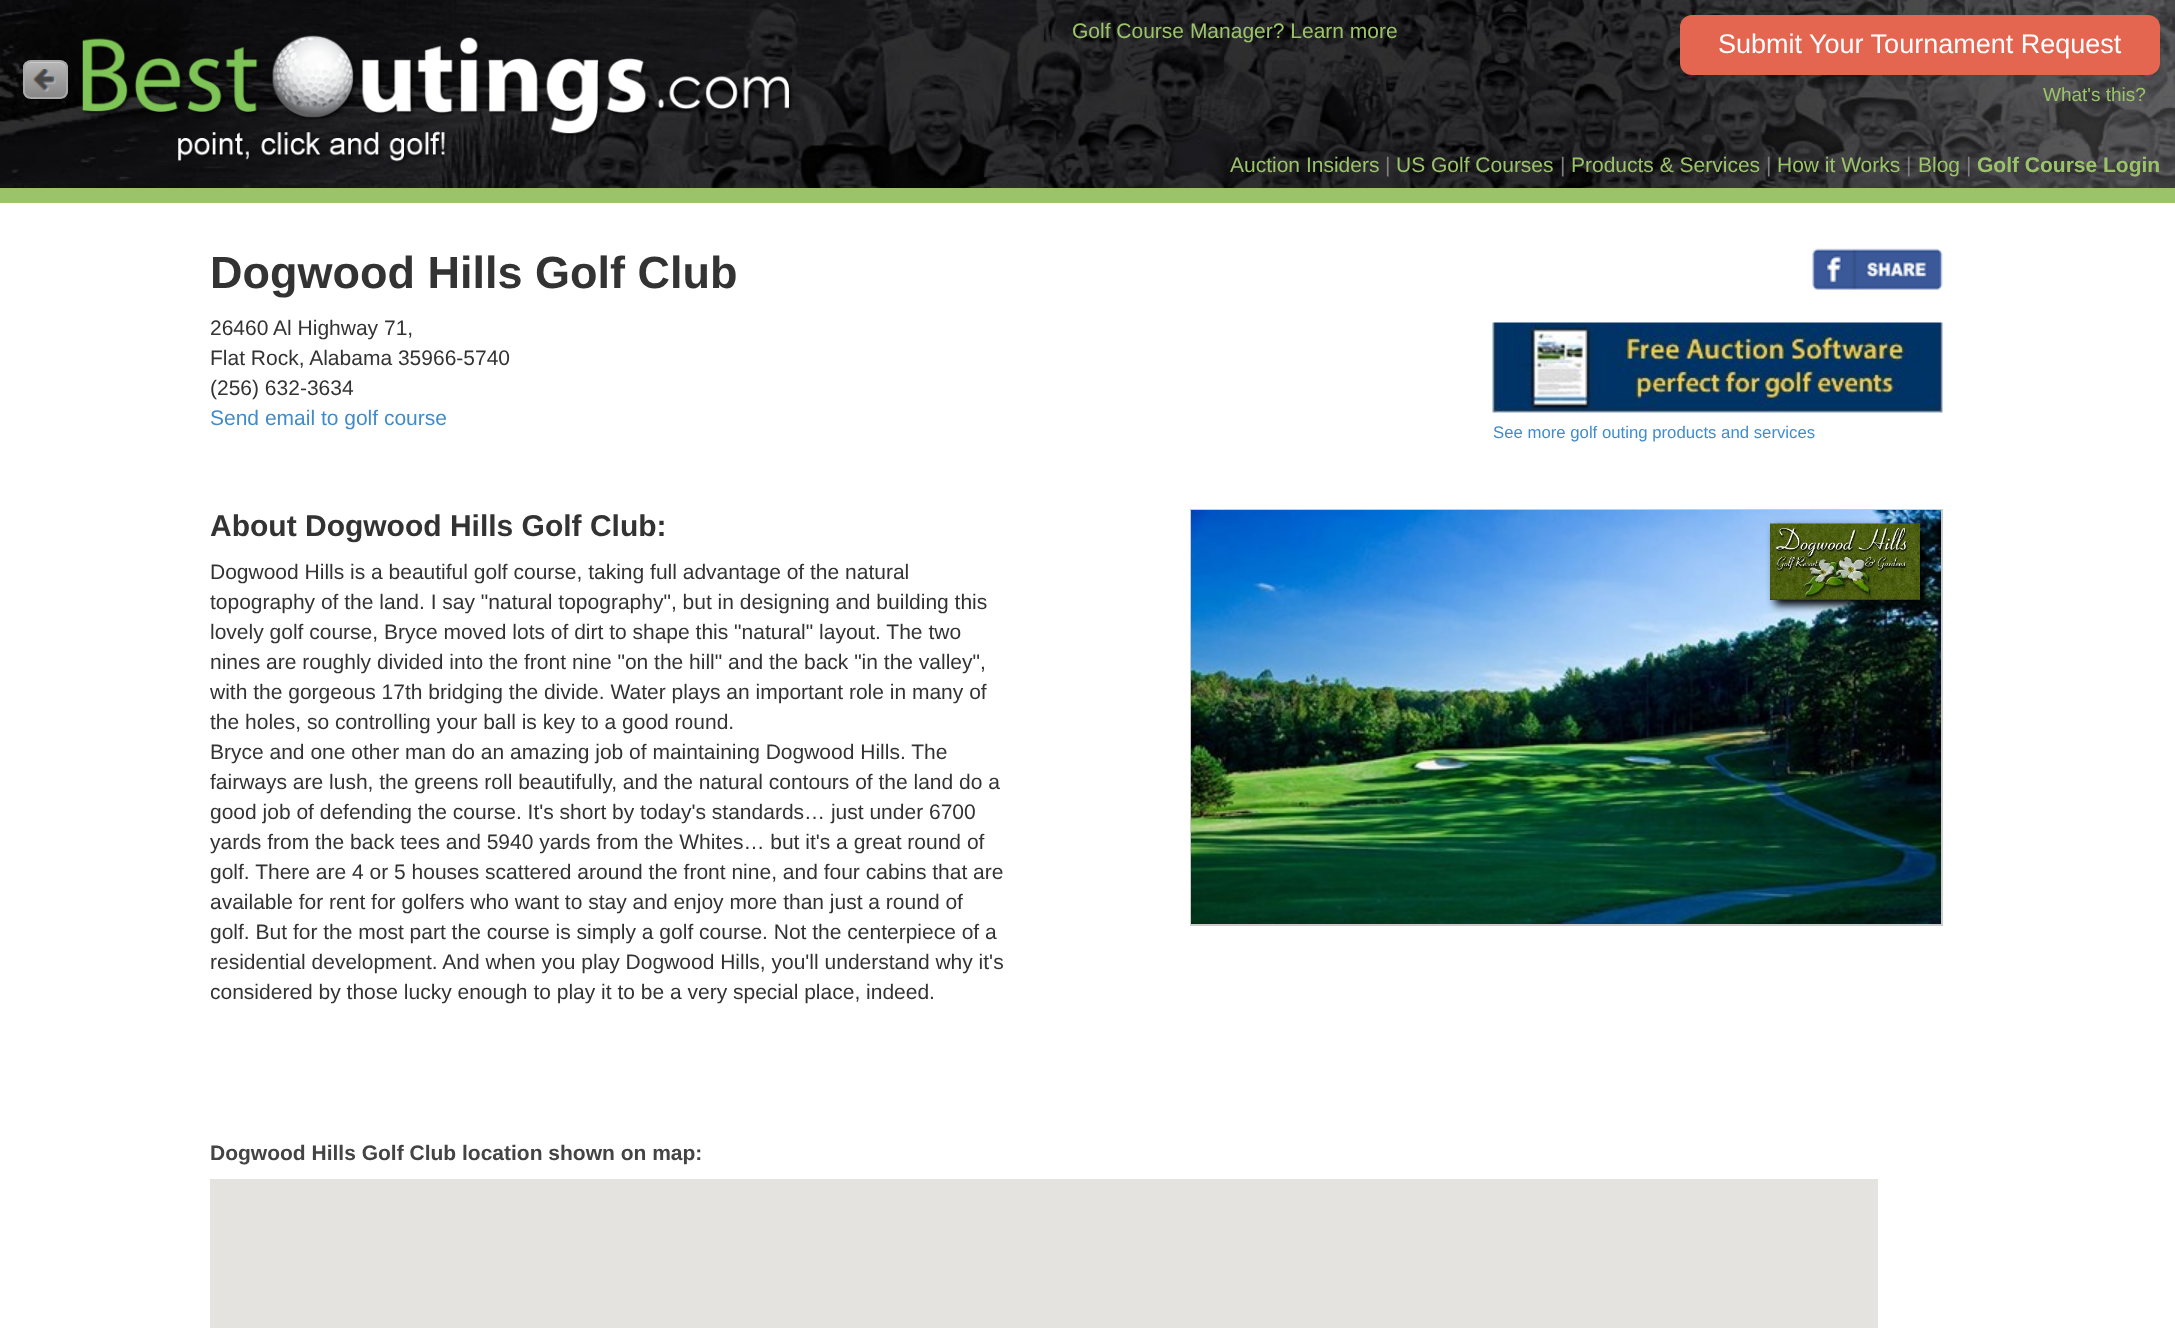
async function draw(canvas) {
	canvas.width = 2175;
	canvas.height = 1328;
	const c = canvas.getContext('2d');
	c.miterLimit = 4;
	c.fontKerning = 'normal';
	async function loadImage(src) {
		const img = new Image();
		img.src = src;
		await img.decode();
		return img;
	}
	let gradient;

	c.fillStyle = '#fff';
	c.fillRect(0, 0, 2175, 1328);
	c.drawImage(await loadImage('img1.png'), 0, 0, 2175, 188);
	c.fillStyle = '#9bc46a';
	c.fillRect(0, 188, 2175, 15);
	c.save();
	c.beginPath();
	c.roundRect(23, 60, 45, 39, 8);
	c.clip();
	gradient = c.createLinearGradient(24, 62, 24, 98);
	gradient.addColorStop(0.05, '#b5b5b5');
	gradient.addColorStop(1, '#858585');
	c.fillStyle = gradient;
	c.fillRect(23, 62, 45, 36);
	c.restore();
	c.fillStyle = '#ccc';
	c.beginPath();
	c.moveTo(30, 63);
	c.lineTo(60, 63);
	c.bezierCurveTo(63, 63, 66, 66, 66, 69);
	c.bezierCurveTo(66, 62, 61, 62, 55, 62);
	c.lineTo(35, 62);
	c.bezierCurveTo(29, 62, 24, 62, 24, 69);
	c.bezierCurveTo(24, 66, 27, 63, 30, 63);
	c.closePath();
	c.fill();
	c.beginPath();
	c.roundRect(24, 61, 43, 37, 7);
	c.strokeStyle = '#a8a8a8';
	c.lineWidth = 2;
	c.stroke();
	c.drawImage(await loadImage('img2.png'), 33, 69, 24, 23);
	c.drawImage(await loadImage('img3.png'), 82, 35, 711, 129);
	c.font = '21px Liberation Sans';
	c.fillStyle = '#9bc46a';
	c.fillText('Golf Course Manager? Learn more', 1072, 38);
	c.fillStyle = '#e46650';
	c.beginPath();
	c.roundRect(1680, 15, 480, 60, 12);
	c.fill();
	c.font = '27px Liberation Sans';
	c.fillStyle = '#fff';
	c.fillText('Submit Your Tournament Request', 1718, 53);
	c.font = '19px Liberation Sans';
	c.fillStyle = '#9bc46a';
	c.fillText('What\'s this?', 2043, 101);
	c.font = '21px Liberation Sans';
	c.fillText('Auction Insiders', 1230, 172);
	c.fillStyle = '#808080';
	c.fillText('|', 1385, 172);
	c.fillStyle = '#9bc46a';
	c.fillText('US Golf Courses', 1396, 172);
	c.fillStyle = '#808080';
	c.fillText('|', 1560, 172);
	c.fillStyle = '#9bc46a';
	c.fillText('Products & Services', 1571, 172);
	c.fillStyle = '#808080';
	c.fillText('|', 1766, 172);
	c.fillStyle = '#9bc46a';
	c.fillText('How it Works', 1777, 172);
	c.fillStyle = '#808080';
	c.fillText('|', 1906, 172);
	c.fillStyle = '#9bc46a';
	c.fillText('Blog', 1918, 172);
	c.fillStyle = '#808080';
	c.fillText('|', 1966, 172);
	c.font = 'bold 21px Liberation Sans';
	c.fillStyle = '#9bc46a';
	c.fillText('Golf Course Login', 1977, 172);
	c.font = 'bold 45px Liberation Sans';
	c.fillStyle = '#333';
	c.fillText('Dogwood Hills Golf Club', 210, 288);
	c.font = '21px Liberation Sans';
	for (const [text, x, y] of [
		['26460 Al Highway 71,', 210, 335],
		['Flat Rock, Alabama 35966-5740', 210, 365],
		['(256) 632-3634', 210, 395],
	]) {
		c.fillText(text, x, y);
	}
	c.fillStyle = '#428bca';
	c.fillText('Send email to golf course', 210, 425);
	c.drawImage(await loadImage('img4.png'), 1812, 248, 131, 42);
	c.drawImage(await loadImage('img5.png'), 1492, 322, 451, 91);
	c.font = '16.75px Liberation Sans';
	c.fillText('See more golf outing products and services', 1493, 438);
	c.font = 'bold 30px Liberation Sans';
	c.fillStyle = '#333';
	c.fillText('About Dogwood Hills Golf Club:', 210, 536);
	c.font = '21px Liberation Sans';
	for (const [text, x, y] of [
		['Dogwood Hills is a beautiful golf course, taking full advantage of the natural', 210, 579],
		['topography of the land. I say "natural topography", but in designing and building this', 210, 609],
		['lovely golf course, Bryce moved lots of dirt to shape this "natural" layout. The two', 210, 639],
		['nines are roughly divided into the front nine "on the hill" and the back "in the valley",', 210, 669],
		['with the gorgeous 17th bridging the divide. Water plays an important role in many of', 210, 699],
		['the holes, so controlling your ball is key to a good round.', 210, 729],
		['Bryce and one other man do an amazing job of maintaining Dogwood Hills. The', 210, 759],
		['fairways are lush, the greens roll beautifully, and the natural contours of the land do a', 210, 789],
		['good job of defending the course. It\'s short by today\'s standards… just under 6700', 210, 819],
		['yards from the back tees and 5940 yards from the Whites… but it\'s a great round of', 210, 849],
		['golf. There are 4 or 5 houses scattered around the front nine, and four cabins that are', 210, 879],
		['available for rent for golfers who want to stay and enjoy more than just a round of', 210, 909],
		['golf. But for the most part the course is simply a golf course. Not the centerpiece of a', 210, 939],
		['residential development. And when you play Dogwood Hills, you\'ll understand why it\'s', 210, 969],
		['considered by those lucky enough to play it to be a very special place, indeed.', 210, 999],
	]) {
		c.fillText(text, x, y);
	}
	c.strokeStyle = '#ccc';
	c.strokeRect(1191, 510, 751, 415);
	c.drawImage(await loadImage('img6.png'), 1191, 510, 750, 414);
	c.fillStyle = '#000';
	c.filter = 'blur(4.5px)';
	c.beginPath();
	c.rect(1775, 528, 150, 77);
	c.fill();
	c.filter = 'none';
	c.drawImage(await loadImage('img7.png'), 1770, 523, 150, 77);
	c.font = 'bold 21px Liberation Sans';
	c.fillStyle = '#444';
	c.fillText('Dogwood Hills Golf Club location shown on map:', 210, 1160);
	c.fillStyle = '#e5e3df';
	c.fillRect(210, 1179, 1668, 149);
}

draw(document.querySelector('canvas'));
